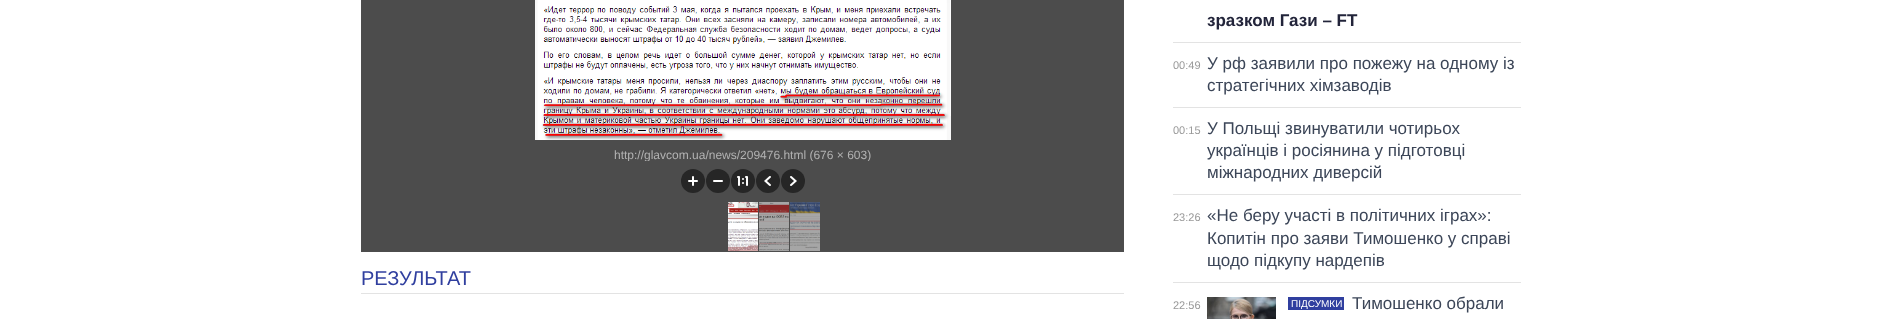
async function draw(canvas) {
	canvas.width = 1881;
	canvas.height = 319;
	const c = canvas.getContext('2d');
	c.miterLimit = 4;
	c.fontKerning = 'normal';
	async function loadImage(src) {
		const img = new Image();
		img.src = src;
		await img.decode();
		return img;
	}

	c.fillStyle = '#fff';
	c.fillRect(0, 0, 1881, 319);
	c.strokeStyle = '#4d4d4d';
	c.strokeRect(361.5, -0.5, 762, 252);
	c.fillStyle = '#4c4c4c';
	c.fillRect(362, 0, 761, 251);
	c.drawImage(await loadImage('img1.png'), 535, 0, 416, 140);
	c.save();
	c.beginPath();
	c.rect(614, 149, 258, 12);
	c.clip();
	c.font = '12px Liberation Sans';
	c.fillStyle = '#b2b2b2';
	c.fillText('http://glavcom.ua/news/209476.html (676 × 603)', 614, 159);
	c.restore();
	c.fillStyle = '#262626';
	c.beginPath();
	c.arc(693, 181, 12, 0, 2 * Math.PI);
	c.fill();
	c.drawImage(await loadImage('img2.png'), 688, 176, 10, 10);
	c.beginPath();
	c.arc(718, 181, 12, 0, 2 * Math.PI);
	c.fill();
	c.drawImage(await loadImage('img3.png'), 713, 180, 10, 2);
	c.beginPath();
	c.arc(743, 181, 12, 0, 2 * Math.PI);
	c.fill();
	c.drawImage(await loadImage('img4.png'), 737, 176, 11, 10);
	c.beginPath();
	c.arc(768, 181, 12, 0, 2 * Math.PI);
	c.fill();
	c.drawImage(await loadImage('img5.png'), 764, 176, 7, 10);
	c.beginPath();
	c.arc(793, 181, 12, 0, 2 * Math.PI);
	c.fill();
	c.drawImage(await loadImage('img6.png'), 790, 176, 7, 10);
	c.drawImage(await loadImage('img7.png'), 728, 202, 30, 49);
	c.drawImage(await loadImage('img8.png'), 759, 202, 30, 49);
	c.drawImage(await loadImage('img9.png'), 790, 202, 30, 49);
	c.fillStyle = '#e3e3e3';
	c.fillRect(361, 293, 763, 1);
	c.font = '20px Liberation Sans';
	c.fillStyle = '#303f9f';
	c.fillText('РЕЗУЛЬТАТ', 361, 285);
	c.font = 'bold 17px Liberation Sans';
	c.fillStyle = '#22243a';
	c.fillText('зразком Гази – FT', 1207, 26);
	c.fillStyle = '#e3e3e3';
	c.fillRect(1173, 42, 348, 1);
	c.font = '11px Liberation Sans';
	c.fillStyle = '#999';
	c.fillText('00:49', 1173, 69);
	c.font = '17px Liberation Sans';
	c.fillStyle = '#3c4658';
	c.fillText('У рф заявили про пожежу на одному із', 1207, 69);
	c.fillText('стратегічних хімзаводів', 1207, 91);
	c.fillStyle = '#e3e3e3';
	c.fillRect(1173, 107, 348, 1);
	c.font = '11px Liberation Sans';
	c.fillStyle = '#999';
	c.fillText('00:15', 1173, 134);
	c.font = '17px Liberation Sans';
	c.fillStyle = '#3c4658';
	for (const [text, x, y] of [
		['У Польщі звинуватили чотирьох', 1207, 134],
		['українців і росіянина у підготовці', 1207, 156],
		['міжнародних диверсій', 1207, 178],
	]) {
		c.fillText(text, x, y);
	}
	c.fillStyle = '#e3e3e3';
	c.fillRect(1173, 194, 348, 1);
	c.font = '11px Liberation Sans';
	c.fillStyle = '#999';
	c.fillText('23:26', 1173, 221);
	c.font = '17px Liberation Sans';
	c.fillStyle = '#3c4658';
	for (const [text, x, y] of [
		['«Не беру участі в політичних іграх»:', 1207, 221],
		['Копитін про заяви Тимошенко у справі', 1207, 244],
		['щодо підкупу нардепів', 1207, 266],
	]) {
		c.fillText(text, x, y);
	}
	c.fillStyle = '#e3e3e3';
	c.fillRect(1173, 282, 348, 1);
	c.font = '11px Liberation Sans';
	c.fillStyle = '#999';
	c.fillText('22:56', 1173, 309);
	c.drawImage(await loadImage('img10.png'), 1207, 297, 69, 22);
	c.fillStyle = '#303f9f';
	c.fillRect(1288, 297, 56, 13);
	c.font = '10px Liberation Sans';
	c.fillStyle = '#fff';
	c.fillText('ПІДСУМКИ', 1291, 307);
	c.font = '17px Liberation Sans';
	c.fillStyle = '#3c4658';
	c.fillText('Тимошенко обрали', 1352, 309);
}

draw(document.querySelector('canvas'));
